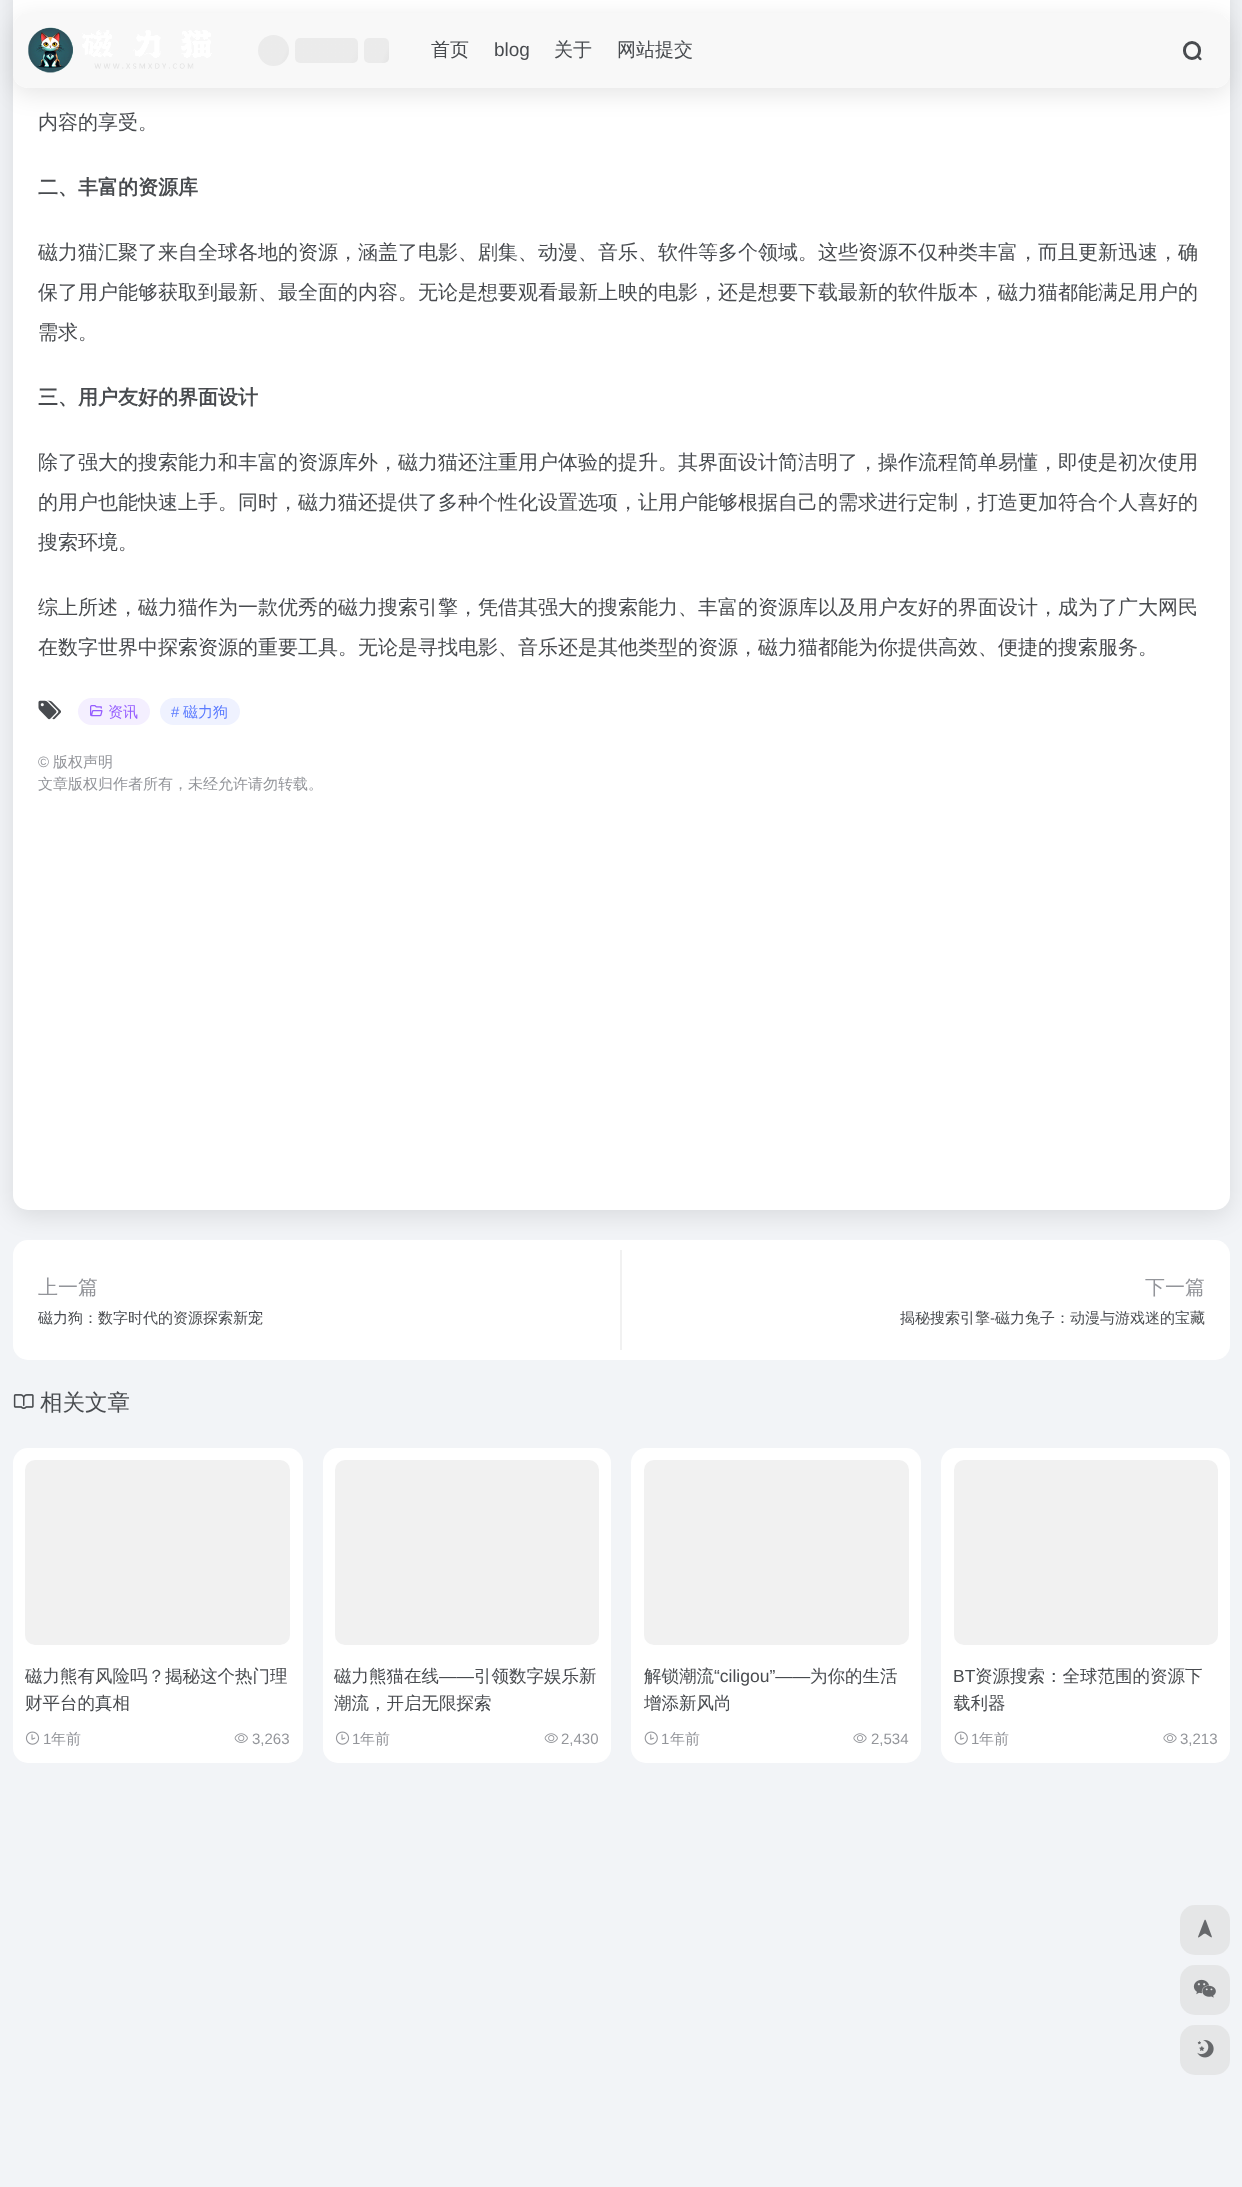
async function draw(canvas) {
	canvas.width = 1242;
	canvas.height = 2187;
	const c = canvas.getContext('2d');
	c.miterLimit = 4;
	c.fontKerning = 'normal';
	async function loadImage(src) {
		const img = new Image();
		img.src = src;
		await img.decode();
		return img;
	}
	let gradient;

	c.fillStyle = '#f2f4f7';
	c.fillRect(0, 0, 1242, 2187);
	c.fillStyle = '#0000001a';
	c.filter = 'blur(12.5px)';
	c.beginPath();
	c.roundRect(13, -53, 1217, 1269, 15);
	c.fill();
	c.filter = 'none';
	c.fillStyle = '#fff';
	c.beginPath();
	c.roundRect(13, -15, 1217, 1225, 15);
	c.fill();
	c.save();
	c.beginPath();
	c.moveTo(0, 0);
	c.lineTo(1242, 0);
	c.lineTo(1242, 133);
	c.lineTo(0, 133);
	c.closePath();
	c.moveTo(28, 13);
	c.lineTo(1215, 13);
	c.bezierCurveTo(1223.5, 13, 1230, 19.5, 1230, 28);
	c.lineTo(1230, 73);
	c.bezierCurveTo(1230, 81.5, 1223.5, 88, 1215, 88);
	c.lineTo(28, 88);
	c.bezierCurveTo(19.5, 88, 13, 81.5, 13, 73);
	c.lineTo(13, 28);
	c.bezierCurveTo(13, 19.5, 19.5, 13, 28, 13);
	c.closePath();
	c.clip('evenodd');
	c.fillStyle = '#0000001a';
	c.filter = 'blur(12.5px)';
	c.beginPath();
	c.roundRect(13, 19, 1217, 75, 15);
	c.fill();
	c.filter = 'none';
	c.restore();
	c.fillStyle = '#f5f5f5bf';
	c.beginPath();
	c.roundRect(13, 13, 1217, 75, 15);
	c.fill();
	c.drawImage(await loadImage('img1.png'), 28, 27, 184, 46);
	gradient = c.createLinearGradient(263, 24, 377, 77);
	gradient.addColorStop(0.25, '#7979791a');
	gradient.addColorStop(0.37, '#79797933');
	gradient.addColorStop(0.63, '#7979791a');
	c.fillStyle = gradient;
	c.beginPath();
	c.arc(273.5, 50.5, 15.5, 0, 2 * Math.PI);
	c.fill();
	gradient = c.createLinearGradient(313, -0.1, 527, 100);
	gradient.addColorStop(0.25, '#7979791a');
	gradient.addColorStop(0.37, '#79797933');
	gradient.addColorStop(0.63, '#7979791a');
	c.fillStyle = gradient;
	c.beginPath();
	c.roundRect(295, 38, 63, 25, 5);
	c.fill();
	gradient = c.createLinearGradient(368, 29, 460, 71);
	gradient.addColorStop(0.25, '#7979791a');
	gradient.addColorStop(0.37, '#79797933');
	gradient.addColorStop(0.63, '#7979791a');
	c.fillStyle = gradient;
	c.beginPath();
	c.roundRect(364, 38, 25, 25, 5);
	c.fill();
	c.font = '500 19px WenQuanYi Zen Hei';
	c.fillStyle = '#484b4f';
	c.fillText('首页', 431, 56);
	c.font = '19px Liberation Sans';
	c.fillText('blog', 494, 56);
	c.font = '500 19px WenQuanYi Zen Hei';
	c.fillText('关于', 554, 56);
	c.fillText('网站提交', 617, 56);
	c.beginPath();
	c.roundRect(1184.5, 42.5, 15, 16, 7.5);
	c.strokeStyle = '#484b4f';
	c.lineWidth = 3;
	c.stroke();
	c.beginPath();
	c.moveTo(1199.5, 56.5);
	c.lineTo(1201.5, 58.5);
	c.bezierCurveTo(1202, 60.5, 1200, 60.5, 1199, 59.5);
	c.lineTo(1197.5, 57.5);
	c.bezierCurveTo(1197, 56.5, 1198.5, 55.5, 1199.5, 56.5);
	c.closePath();
	c.fill();
	c.font = '500 20px WenQuanYi Zen Hei';
	c.fillText('内容的享受。', 38, 129);
	c.font = 'bold 20px WenQuanYi Zen Hei';
	c.fillText('二、丰富的资源库', 38, 194);
	c.font = '500 20px WenQuanYi Zen Hei';
	for (const [text, x, y] of [
		['磁力猫汇聚了来自全球各地的资源，涵盖了电影、剧集、动漫、音乐、软件等多个领域。这些资源不仅种类丰富，而且更新迅速，确', 38, 259],
		['保了用户能够获取到最新、最全面的内容。无论是想要观看最新上映的电影，还是想要下载最新的软件版本，磁力猫都能满足用户的', 38, 299],
		['需求。', 38, 339],
	]) {
		c.fillText(text, x, y);
	}
	c.font = 'bold 20px WenQuanYi Zen Hei';
	c.fillText('三、用户友好的界面设计', 38, 404);
	c.font = '500 20px WenQuanYi Zen Hei';
	for (const [text, x, y] of [
		['除了强大的搜索能力和丰富的资源库外，磁力猫还注重用户体验的提升。其界面设计简洁明了，操作流程简单易懂，即使是初次使用', 38, 469],
		['的用户也能快速上手。同时，磁力猫还提供了多种个性化设置选项，让用户能够根据自己的需求进行定制，打造更加符合个人喜好的', 38, 509],
		['搜索环境。', 38, 549],
		['综上所述，磁力猫作为一款优秀的磁力搜索引擎，凭借其强大的搜索能力、丰富的资源库以及用户友好的界面设计，成为了广大网民', 38, 614],
		['在数字世界中探索资源的重要工具。无论是寻找电影、音乐还是其他类型的资源，磁力猫都能为你提供高效、便捷的搜索服务。', 38, 654],
	]) {
		c.fillText(text, x, y);
	}
	c.drawImage(await loadImage('img2.png'), 38, 700, 23, 20);
	c.fillStyle = '#f4efff';
	c.beginPath();
	c.roundRect(78, 698, 72, 27, 13.5);
	c.fill();
	c.drawImage(await loadImage('img3.png'), 90, 705, 13, 12);
	c.font = '500 15px WenQuanYi Zen Hei';
	c.fillStyle = '#955cff';
	c.fillText('资讯', 108, 717);
	c.fillStyle = '#eff2ff';
	c.beginPath();
	c.roundRect(160, 698, 80, 27, 13.5);
	c.fill();
	c.font = '15px Liberation Sans';
	c.fillStyle = '#5c7cff';
	c.fillText('#', 171, 717);
	c.font = '500 15px WenQuanYi Zen Hei';
	c.fillText('磁力狗', 183, 717);
	c.font = '15px Liberation Sans';
	c.fillStyle = '#93959a';
	c.fillText('©', 38, 767);
	c.font = '500 15px WenQuanYi Zen Hei';
	c.fillText('版权声明', 53, 767);
	c.fillText('文章版权归作者所有，未经允许请勿转载。', 38, 789);
	c.fillStyle = '#fff';
	c.beginPath();
	c.roundRect(13, 1240, 1217, 120, 15);
	c.fill();
	c.fillStyle = '#f1f1f1';
	c.fillRect(620, 1250, 2, 100);
	c.font = '500 20px WenQuanYi Zen Hei';
	c.fillStyle = '#93959a';
	c.fillText('上一篇', 38, 1294);
	c.font = '500 15px WenQuanYi Zen Hei';
	c.fillStyle = '#484b4f';
	c.fillText('磁力狗：数字时代的资源探索新宠', 38, 1323);
	c.font = '500 20px WenQuanYi Zen Hei';
	c.fillStyle = '#93959a';
	c.fillText('下一篇', 1145, 1294);
	c.font = '500 15px WenQuanYi Zen Hei';
	c.fillStyle = '#484b4f';
	c.fillText('揭秘搜索引擎', 900, 1323);
	c.font = '15px Liberation Sans';
	c.fillText('-', 990, 1323);
	c.font = '500 15px WenQuanYi Zen Hei';
	c.fillText('磁力兔子：动漫与游戏迷的宝藏', 995, 1323);
	c.drawImage(await loadImage('img4.png'), 13, 1394, 21, 15);
	c.font = '500 22.5px WenQuanYi Zen Hei';
	c.fillText('相关文章', 40, 1410);
	c.fillStyle = '#fff';
	c.beginPath();
	c.roundRect(13, 1448, 290, 315, 15);
	c.fill();
	c.fillStyle = '#f1f1f1';
	c.beginPath();
	c.roundRect(25, 1460, 265, 185, 10);
	c.fill();
	c.font = '500 17.5px WenQuanYi Zen Hei';
	c.fillStyle = '#484b4f';
	c.fillText('磁力熊有风险吗？揭秘这个热门理', 25, 1682);
	c.fillText('财平台的真相', 25, 1709);
	c.drawImage(await loadImage('img5.png'), 25, 1731, 15, 14);
	c.font = '15px Liberation Sans';
	c.fillStyle = '#93959a';
	c.fillText('1', 43, 1744);
	c.font = '500 15px WenQuanYi Zen Hei';
	c.fillText('年前', 51, 1744);
	c.drawImage(await loadImage('img6.png'), 234, 1733, 14, 10);
	c.font = '15px Liberation Sans';
	c.fillText('3,263', 252, 1744);
	c.fillStyle = '#fff';
	c.beginPath();
	c.roundRect(323, 1448, 288, 315, 15);
	c.fill();
	c.fillStyle = '#f1f1f1';
	c.beginPath();
	c.roundRect(335, 1460, 264, 185, 10);
	c.fill();
	c.font = '500 17.5px WenQuanYi Zen Hei';
	c.fillStyle = '#484b4f';
	c.fillText('磁力熊猫在线', 334, 1682);
	c.font = '17.5px Liberation Sans';
	c.fillText('——', 439, 1682);
	c.font = '500 17.5px WenQuanYi Zen Hei';
	c.fillText('引领数字娱乐新', 474, 1682);
	c.fillText('潮流，开启无限探索', 334, 1709);
	c.drawImage(await loadImage('img5.png'), 335, 1731, 15, 14);
	c.font = '15px Liberation Sans';
	c.fillStyle = '#93959a';
	c.fillText('1', 352, 1744);
	c.font = '500 15px WenQuanYi Zen Hei';
	c.fillText('年前', 360, 1744);
	c.drawImage(await loadImage('img6.png'), 544, 1733, 14, 10);
	c.font = '15px Liberation Sans';
	c.fillText('2,430', 561, 1744);
	c.fillStyle = '#fff';
	c.beginPath();
	c.roundRect(631, 1448, 290, 315, 15);
	c.fill();
	c.fillStyle = '#f1f1f1';
	c.beginPath();
	c.roundRect(644, 1460, 265, 185, 10);
	c.fill();
	c.font = '500 17.5px WenQuanYi Zen Hei';
	c.fillStyle = '#484b4f';
	c.fillText('解锁潮流', 644, 1682);
	c.font = '17.5px Liberation Sans';
	c.fillText('“ciligou”——', 714, 1682);
	c.font = '500 17.5px WenQuanYi Zen Hei';
	c.fillText('为你的生活', 810, 1682);
	c.fillText('增添新风尚', 644, 1709);
	c.drawImage(await loadImage('img7.png'), 644, 1731, 14, 14);
	c.font = '15px Liberation Sans';
	c.fillStyle = '#93959a';
	c.fillText('1', 661, 1744);
	c.font = '500 15px WenQuanYi Zen Hei';
	c.fillText('年前', 670, 1744);
	c.drawImage(await loadImage('img8.png'), 853, 1733, 14, 10);
	c.font = '15px Liberation Sans';
	c.fillText('2,534', 871, 1744);
	c.fillStyle = '#fff';
	c.beginPath();
	c.roundRect(941, 1448, 289, 315, 15);
	c.fill();
	c.fillStyle = '#f1f1f1';
	c.beginPath();
	c.roundRect(954, 1460, 264, 185, 10);
	c.fill();
	c.font = '17.5px Liberation Sans';
	c.fillStyle = '#484b4f';
	c.fillText('BT', 953, 1682);
	c.font = '500 17.5px WenQuanYi Zen Hei';
	c.fillText('资源搜索：全球范围的资源下', 975, 1682);
	c.save();
	c.beginPath();
	c.rect(954, 1664, 264, 52);
	c.clip();
	c.fillText('载利器', 953, 1709);
	c.restore();
	c.drawImage(await loadImage('img7.png'), 954, 1731, 14, 14);
	c.font = '15px Liberation Sans';
	c.fillStyle = '#93959a';
	c.fillText('1', 971, 1744);
	c.font = '500 15px WenQuanYi Zen Hei';
	c.fillText('年前', 979, 1744);
	c.drawImage(await loadImage('img8.png'), 1163, 1733, 14, 10);
	c.font = '15px Liberation Sans';
	c.fillText('3,213', 1180, 1744);
	c.fillStyle = '#e5e6e7';
	c.beginPath();
	c.roundRect(1180, 1905, 50, 50, 15);
	c.fill();
	c.drawImage(await loadImage('img9.png'), 1198, 1919, 14, 19);
	c.beginPath();
	c.roundRect(1180, 1965, 50, 50, 15);
	c.fill();
	c.drawImage(await loadImage('img10.png'), 1193, 1979, 23, 19);
	c.beginPath();
	c.roundRect(1180, 2025, 50, 50, 15);
	c.fill();
	c.drawImage(await loadImage('img11.png'), 1197, 2040, 17, 18);
}

draw(document.querySelector('canvas'));
